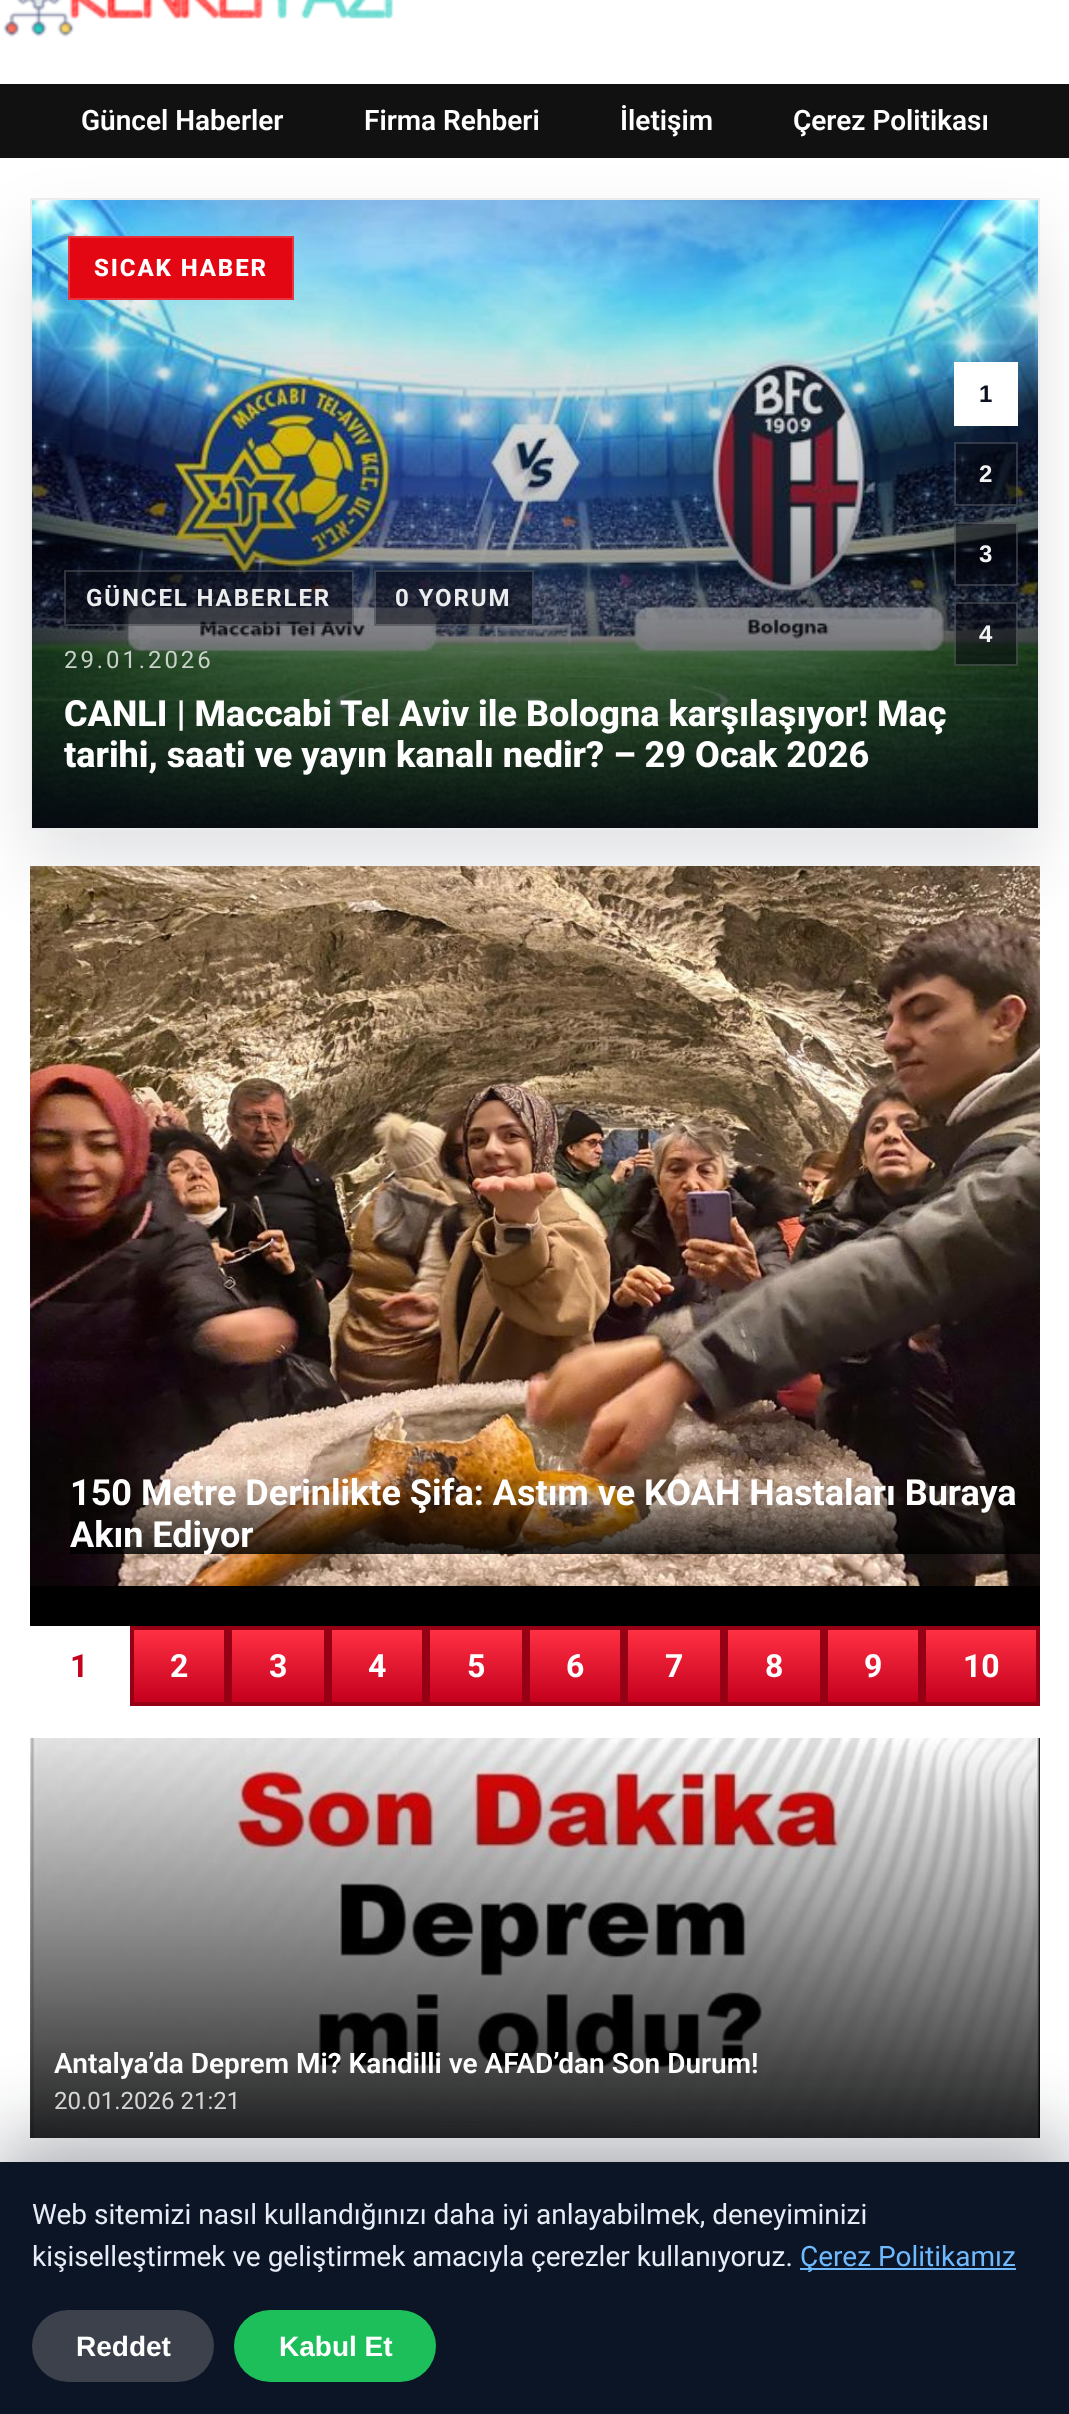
async function draw(canvas) {
	canvas.width = 1069;
	canvas.height = 2414;
	const c = canvas.getContext('2d');
	c.miterLimit = 4;
	c.fontKerning = 'normal';
	async function loadImage(src) {
		const img = new Image();
		img.src = src;
		await img.decode();
		return img;
	}
	let gradient;

	c.fillStyle = '#fff';
	c.fillRect(0, 0, 1069, 2414);
	c.drawImage(await loadImage('img1.png'), 3, 0, 391, 37);
	c.fillStyle = '#111';
	c.fillRect(0, 84, 1069, 74);
	c.font = '600 28px Roboto';
	c.fillStyle = '#fff';
	for (const [text, x, y] of [
		['Güncel Haberler', 81, 130],
		['Firma Rehberi', 364, 130],
		['İletişim', 620, 130],
		['Çerez Politikası', 793, 130],
	]) {
		c.fillText(text, x, y);
	}
	c.fillStyle = '#1018281f';
	c.filter = 'blur(35px)';
	c.beginPath();
	c.rect(30, 234, 1010, 632);
	c.fill();
	c.filter = 'none';
	c.strokeStyle = '#ececee';
	c.lineWidth = 2;
	c.strokeRect(31, 199, 1008, 630);
	c.drawImage(await loadImage('img2.png'), 32, 200, 1006, 628);
	c.fillStyle = '#e30613';
	c.beginPath();
	c.rect(69, 237, 224, 62);
	c.fill();
	c.strokeStyle = '#e8333d';
	c.stroke();
	c.letterSpacing = '1.9px';
	c.font = '800 24px Roboto';
	c.fillStyle = '#fff';
	c.fillText('SICAK HABER', 94, 276);
	c.fillStyle = '#0507108c';
	c.fillRect(64, 570, 290, 56);
	c.strokeStyle = '#ffffff2e';
	c.strokeRect(65, 571, 288, 54);
	c.font = 'bold 24px Roboto';
	c.fillStyle = '#ecedee';
	c.fillText('GÜNCEL HABERLER', 86, 606);
	c.fillStyle = '#0507108c';
	c.fillRect(374, 570, 160, 56);
	c.strokeRect(375, 571, 158, 54);
	c.fillStyle = '#ecedee';
	c.fillText('0 YORUM', 395, 606);
	c.letterSpacing = '2.9px';
	c.font = '24px Roboto';
	c.fillStyle = '#c8d1c9';
	c.fillText('29.01.2026', 64, 668);
	c.letterSpacing = '0px';
	c.font = '800 36px Roboto';
	c.fillStyle = '#fff';
	c.fillText('CANLI | Maccabi Tel Aviv ile Bologna karşılaşıyor! Maç', 64, 726);
	c.fillText('tarihi, saati ve yayın kanalı nedir? – 29 Ocak 2026', 64, 767);
	c.fillRect(954, 362, 64, 64);
	c.font = 'bold 24px Liberation Sans';
	c.fillStyle = '#0b1120';
	c.fillText('1', 979, 402);
	c.fillStyle = '#0507108c';
	c.fillRect(954, 442, 64, 64);
	c.strokeRect(955, 443, 62, 62);
	c.fillStyle = '#f3f3f3';
	c.fillText('2', 979, 482);
	c.fillStyle = '#0507108c';
	c.fillRect(954, 522, 64, 64);
	c.strokeRect(955, 523, 62, 62);
	c.fillStyle = '#f3f3f3';
	c.fillText('3', 979, 562);
	c.fillStyle = '#0507108c';
	c.fillRect(954, 602, 64, 64);
	c.strokeRect(955, 603, 62, 62);
	c.fillStyle = '#f3f3f3';
	c.fillText('4', 979, 642);
	c.fillStyle = '#000';
	c.fillRect(30, 1586, 1010, 40);
	c.drawImage(await loadImage('img3.png'), 30, 866, 1010, 720);
	c.font = 'bold 36px Roboto';
	c.fillStyle = '#fff';
	c.fillText('150 Metre Derinlikte Şifa: Astım ve KOAH Hastaları Buraya', 70, 1505);
	c.fillText('Akın Ediyor', 70, 1547);
	c.drawImage(await loadImage('img4.png'), 30, 1738, 1010, 400);
	c.save();
	c.beginPath();
	c.rect(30, 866, 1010, 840);
	c.clip();
	c.fillStyle = '#00000059';
	c.filter = 'blur(18px)';
	c.beginPath();
	c.rect(30, 1614, 1010, 80);
	c.fill();
	c.filter = 'none';
	c.restore();
	c.fillRect(30, 1626, 100, 80);
	c.font = 'bold 32px Roboto';
	c.fillStyle = '#c4001d';
	c.fillText('1', 70, 1677);
	gradient = c.createLinearGradient(179, 1630, 179, 1702);
	gradient.addColorStop(0, '#ff3043');
	gradient.addColorStop(1, '#c4001d');
	c.fillStyle = gradient;
	c.fillRect(134, 1630, 90, 72);
	c.strokeStyle = '#950014';
	c.lineWidth = 4;
	c.strokeRect(132, 1628, 94, 76);
	c.fillStyle = '#fff';
	c.fillText('2', 170, 1677);
	gradient = c.createLinearGradient(278, 1630, 278, 1702);
	gradient.addColorStop(0, '#ff3043');
	gradient.addColorStop(1, '#c4001d');
	c.fillStyle = gradient;
	c.fillRect(232, 1630, 92, 72);
	c.strokeRect(230, 1628, 96, 76);
	c.fillStyle = '#fff';
	c.fillText('3', 269, 1677);
	gradient = c.createLinearGradient(377, 1630, 377, 1702);
	gradient.addColorStop(0, '#ff3043');
	gradient.addColorStop(1, '#c4001d');
	c.fillStyle = gradient;
	c.fillRect(332, 1630, 90, 72);
	c.strokeRect(330, 1628, 94, 76);
	c.fillStyle = '#fff';
	c.fillText('4', 368, 1677);
	gradient = c.createLinearGradient(476, 1630, 476, 1702);
	gradient.addColorStop(0, '#ff3043');
	gradient.addColorStop(1, '#c4001d');
	c.fillStyle = gradient;
	c.fillRect(430, 1630, 92, 72);
	c.strokeRect(428, 1628, 96, 76);
	c.fillStyle = '#fff';
	c.fillText('5', 467, 1677);
	gradient = c.createLinearGradient(575, 1630, 575, 1702);
	gradient.addColorStop(0, '#ff3043');
	gradient.addColorStop(1, '#c4001d');
	c.fillStyle = gradient;
	c.fillRect(530, 1630, 90, 72);
	c.strokeRect(528, 1628, 94, 76);
	c.fillStyle = '#fff';
	c.fillText('6', 566, 1677);
	gradient = c.createLinearGradient(674, 1630, 674, 1702);
	gradient.addColorStop(0, '#ff3043');
	gradient.addColorStop(1, '#c4001d');
	c.fillStyle = gradient;
	c.fillRect(628, 1630, 92, 72);
	c.strokeRect(626, 1628, 96, 76);
	c.fillStyle = '#fff';
	c.fillText('7', 665, 1677);
	gradient = c.createLinearGradient(774, 1630, 774, 1702);
	gradient.addColorStop(0, '#ff3043');
	gradient.addColorStop(1, '#c4001d');
	c.fillStyle = gradient;
	c.fillRect(728, 1630, 92, 72);
	c.strokeRect(726, 1628, 96, 76);
	c.fillStyle = '#fff';
	c.fillText('8', 765, 1677);
	gradient = c.createLinearGradient(873, 1630, 873, 1702);
	gradient.addColorStop(0, '#ff3043');
	gradient.addColorStop(1, '#c4001d');
	c.fillStyle = gradient;
	c.fillRect(828, 1630, 90, 72);
	c.strokeRect(826, 1628, 94, 76);
	c.fillStyle = '#fff';
	c.fillText('9', 864, 1677);
	gradient = c.createLinearGradient(981, 1630, 981, 1702);
	gradient.addColorStop(0, '#ff3043');
	gradient.addColorStop(1, '#c4001d');
	c.fillStyle = gradient;
	c.fillRect(926, 1630, 110, 72);
	c.strokeRect(924, 1628, 114, 76);
	c.fillStyle = '#fff';
	c.fillText('10', 963, 1677);
	c.font = '600 28px Roboto';
	c.fillText('Antalya’da Deprem Mi? Kandilli ve AFAD’dan Son Durum!', 54, 2073);
	c.font = '24px Roboto';
	c.fillStyle = '#e1e1e1';
	c.fillText('20.01.2026 21:21', 54, 2109);
	c.fillStyle = '#0c152259';
	c.filter = 'blur(40px)';
	c.beginPath();
	c.rect(0, 2138, 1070, 252);
	c.fill();
	c.filter = 'none';
	c.fillStyle = '#0b1526';
	c.fillRect(0, 2162, 1069, 252);
	c.font = '28px Roboto';
	c.fillStyle = '#e7ecf6';
	c.fillText('Web sitemizi nasıl kullandığınızı daha iyi anlayabilmek, deneyiminizi', 32, 2224);
	c.fillText('kişiselleştirmek ve geliştirmek amacıyla çerezler kullanıyoruz.', 32, 2266);
	c.fillStyle = '#6fb9ff';
	c.fillRect(800, 2268, 216, 2);
	c.fillText('Çerez Politikamız', 800, 2266);
	c.fillStyle = '#3c414b';
	c.beginPath();
	c.roundRect(32, 2310, 182, 72, 36);
	c.fill();
	c.font = 'bold 28px Liberation Sans';
	c.fillStyle = '#fff';
	c.fillText('Reddet', 76, 2356);
	c.fillStyle = '#1dbf5b';
	c.beginPath();
	c.roundRect(234, 2310, 202, 72, 36);
	c.fill();
	c.fillStyle = '#fff';
	c.fillText('Kabul Et', 279, 2356);
}

draw(document.querySelector('canvas'));
